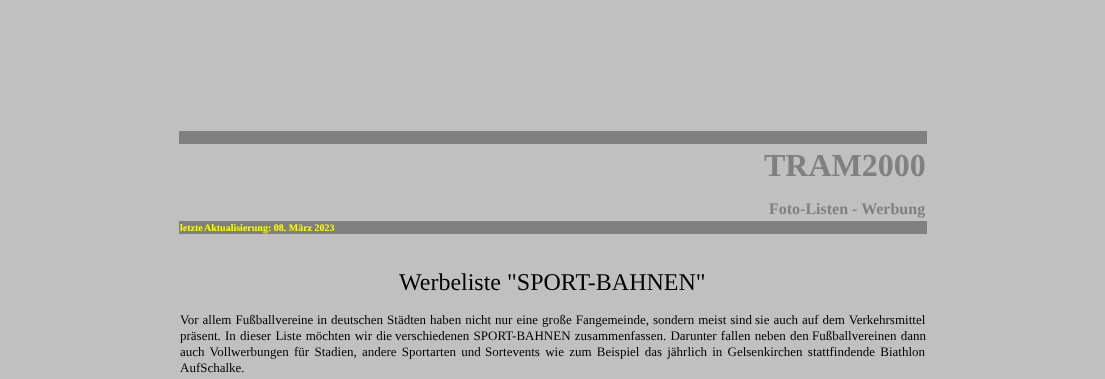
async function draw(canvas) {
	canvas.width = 1105;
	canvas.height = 379;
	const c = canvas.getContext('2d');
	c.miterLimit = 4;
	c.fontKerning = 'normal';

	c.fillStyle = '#c0c0c0';
	c.fillRect(0, 0, 1105, 379);
	c.fillStyle = '#808080';
	c.fillRect(179, 131, 748, 13);
	c.font = 'bold 32px Liberation Serif';
	c.fillText('TRAM2000', 764, 176);
	c.font = 'bold 16px Liberation Serif';
	c.fillText('Foto-Listen - Werbung', 769, 214);
	c.fillRect(179, 221, 748, 13);
	c.font = 'bold 10px Liberation Serif';
	c.fillStyle = '#ff0';
	c.fillText('letzte', 180, 231);
	c.fillText('Aktualisierung: 08. März 2023', 204, 231);
	c.font = '24px Liberation Serif';
	c.fillStyle = '#000';
	c.fillText('Werbeliste "SPORT-BAHNEN"', 399, 290);
	c.wordSpacing = '0.75px';
	c.font = '13px Liberation Serif';
	for (const [text, x, y] of [
		['Vor allem Fußballvereine', 180, 324],
		['in deutschen Städten haben nicht nur eine große Fangemeinde, sondern meist sind', 317, 324],
		['sie auch auf dem Verkehrsmittel', 755, 324],
	]) {
		c.fillText(text, x, y);
	}
	c.wordSpacing = '1px';
	for (const [text, x, y] of [
		['präsent. In dieser Liste möchten wir die', 180, 340],
		['verschiedenen SPORT-BAHNEN zusammenfassen. Darunter fallen neben den', 395, 340],
		['Fußballvereinen dann', 812, 340],
	]) {
		c.fillText(text, x, y);
	}
	c.wordSpacing = '2px';
	c.fillText('auch Vollwerbungen für Stadien, andere Sportarten und', 180, 356);
	c.fillText('Sortevents wie zum Beispiel das jährlich in Gelsenkirchen stattfindende Biathlon', 485, 356);
	c.wordSpacing = '0px';
	c.fillText('AufSchalke.', 180, 372);
}

draw(document.querySelector('canvas'));
